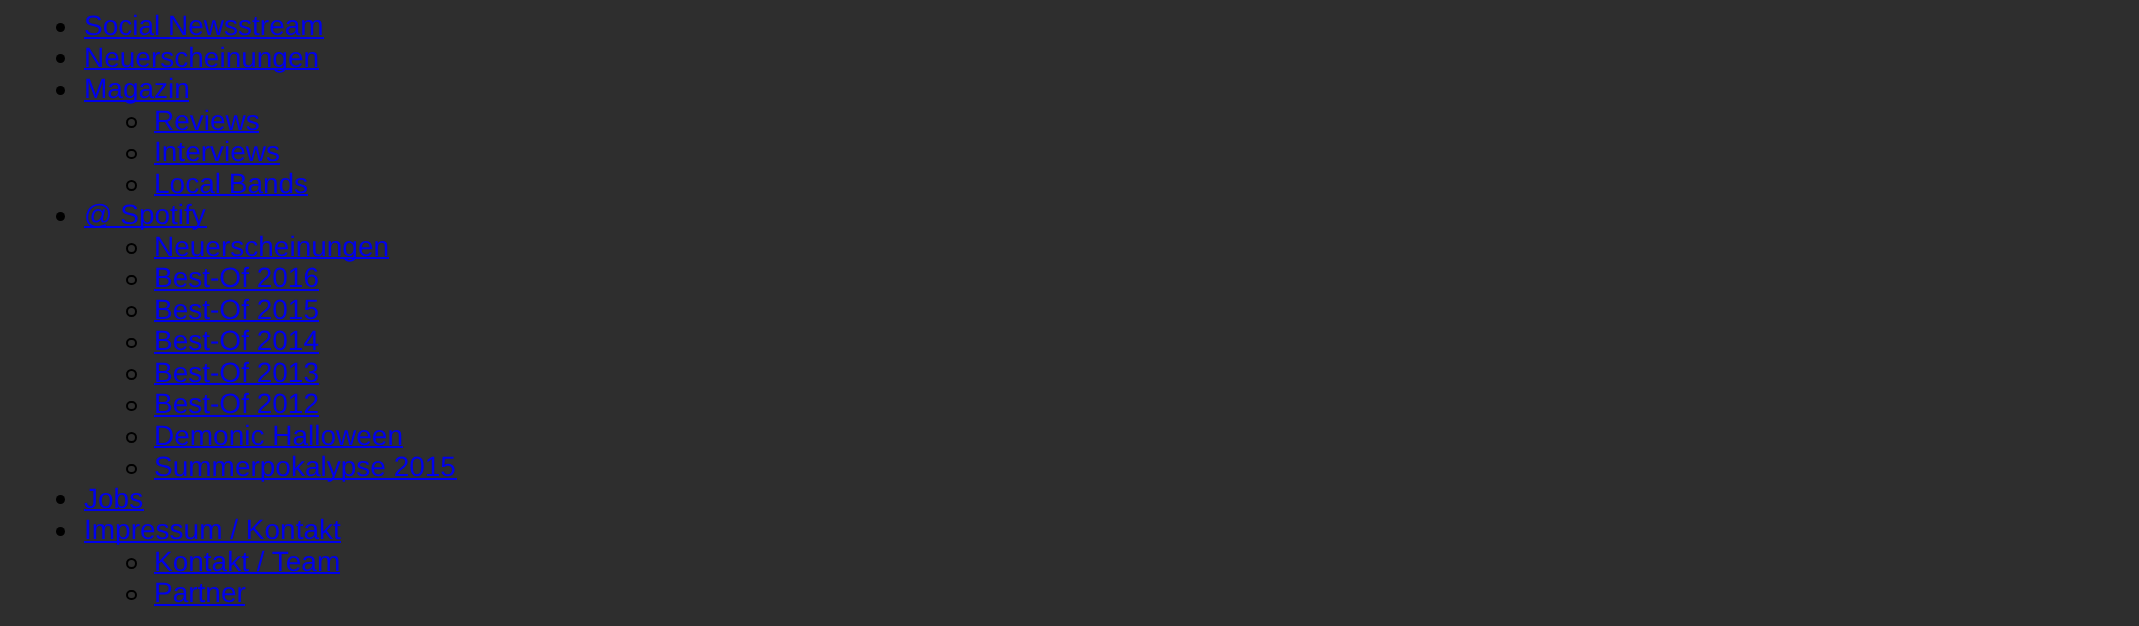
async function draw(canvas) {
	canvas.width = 2139;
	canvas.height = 626;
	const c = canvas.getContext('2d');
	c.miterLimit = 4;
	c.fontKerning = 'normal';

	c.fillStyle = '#2e2e2e';
	c.fillRect(0, 0, 2139, 626);
	c.fillStyle = '#000';
	c.beginPath();
	c.arc(60.5, 27.5, 4.5, 0, 2 * Math.PI);
	c.fill();
	c.font = '28px Liberation Sans';
	c.fillStyle = '#00e';
	c.fillText('Social Newsstream', 84, 35);
	c.fillRect(84, 37, 240, 2);
	c.fillStyle = '#000';
	c.beginPath();
	c.arc(60.5, 58.5, 4.5, 0, 2 * Math.PI);
	c.fill();
	c.fillStyle = '#00e';
	c.fillRect(84, 68, 235, 2);
	c.fillText('Neuerscheinungen', 84, 67);
	c.fillStyle = '#000';
	c.beginPath();
	c.arc(60.5, 90.5, 4.5, 0, 2 * Math.PI);
	c.fill();
	c.fillStyle = '#00e';
	c.fillRect(84, 100, 105, 2);
	c.fillText('Magazin', 84, 98);
	c.beginPath();
	c.arc(131.5, 122.5, 4.5, 0, 2 * Math.PI);
	c.strokeStyle = '#000';
	c.lineWidth = 2;
	c.stroke();
	c.fillText('Reviews', 154, 130);
	c.fillRect(154, 131, 105, 2);
	c.beginPath();
	c.roundRect(127, 150, 9, 8, 4);
	c.stroke();
	c.fillText('Interviews', 154, 161);
	c.fillRect(154, 163, 126, 2);
	c.beginPath();
	c.arc(131.5, 185.5, 4.5, 0, 2 * Math.PI);
	c.stroke();
	c.fillText('Local Bands', 154, 193);
	c.fillRect(154, 194, 154, 2);
	c.fillStyle = '#000';
	c.beginPath();
	c.arc(60.5, 216.5, 4.5, 0, 2 * Math.PI);
	c.fill();
	c.fillStyle = '#00e';
	c.fillRect(84, 226, 123, 2);
	c.fillText('@ Spotify', 84, 224);
	c.beginPath();
	c.arc(131.5, 248.5, 4.5, 0, 2 * Math.PI);
	c.stroke();
	c.fillRect(154, 257, 235, 2);
	c.fillText('Neuerscheinungen', 154, 256);
	c.beginPath();
	c.roundRect(127, 276, 9, 8, 4);
	c.stroke();
	c.fillText('Best-Of 2016', 154, 287);
	c.fillRect(154, 289, 165, 2);
	c.beginPath();
	c.arc(131.5, 311.5, 4.5, 0, 2 * Math.PI);
	c.stroke();
	c.fillText('Best-Of 2015', 154, 319);
	c.fillRect(154, 320, 165, 2);
	c.beginPath();
	c.roundRect(127, 339, 9, 8, 4);
	c.stroke();
	c.fillText('Best-Of 2014', 154, 350);
	c.fillRect(154, 352, 165, 2);
	c.beginPath();
	c.arc(131.5, 374.5, 4.5, 0, 2 * Math.PI);
	c.stroke();
	c.fillText('Best-Of 2013', 154, 382);
	c.fillRect(154, 383, 165, 2);
	c.beginPath();
	c.roundRect(127, 402, 9, 8, 4);
	c.stroke();
	c.fillText('Best-Of 2012', 154, 413);
	c.fillRect(154, 415, 165, 2);
	c.beginPath();
	c.arc(131.5, 437.5, 4.5, 0, 2 * Math.PI);
	c.stroke();
	c.fillText('Demonic Halloween', 154, 445);
	c.fillRect(154, 446, 249, 2);
	c.beginPath();
	c.roundRect(127, 465, 9, 8, 4);
	c.stroke();
	c.fillRect(154, 478, 303, 2);
	c.fillText('Summerpokalypse 2015', 154, 476);
	c.fillStyle = '#000';
	c.beginPath();
	c.arc(60.5, 499.5, 4.5, 0, 2 * Math.PI);
	c.fill();
	c.fillStyle = '#00e';
	c.fillText('Jobs', 84, 508);
	c.fillRect(84, 509, 60, 2);
	c.fillStyle = '#000';
	c.beginPath();
	c.arc(60.5, 531.5, 4.5, 0, 2 * Math.PI);
	c.fill();
	c.fillStyle = '#00e';
	c.fillRect(84, 541, 257, 2);
	c.fillText('Impressum / Kontakt', 84, 539);
	c.beginPath();
	c.arc(131.5, 563.5, 4.5, 0, 2 * Math.PI);
	c.stroke();
	c.fillText('Kontakt / Team', 154, 571);
	c.fillRect(154, 572, 186, 2);
	c.beginPath();
	c.roundRect(127, 591, 9, 8, 4);
	c.stroke();
	c.fillText('Partner', 154, 602);
	c.fillRect(154, 604, 91, 2);
}

draw(document.querySelector('canvas'));
